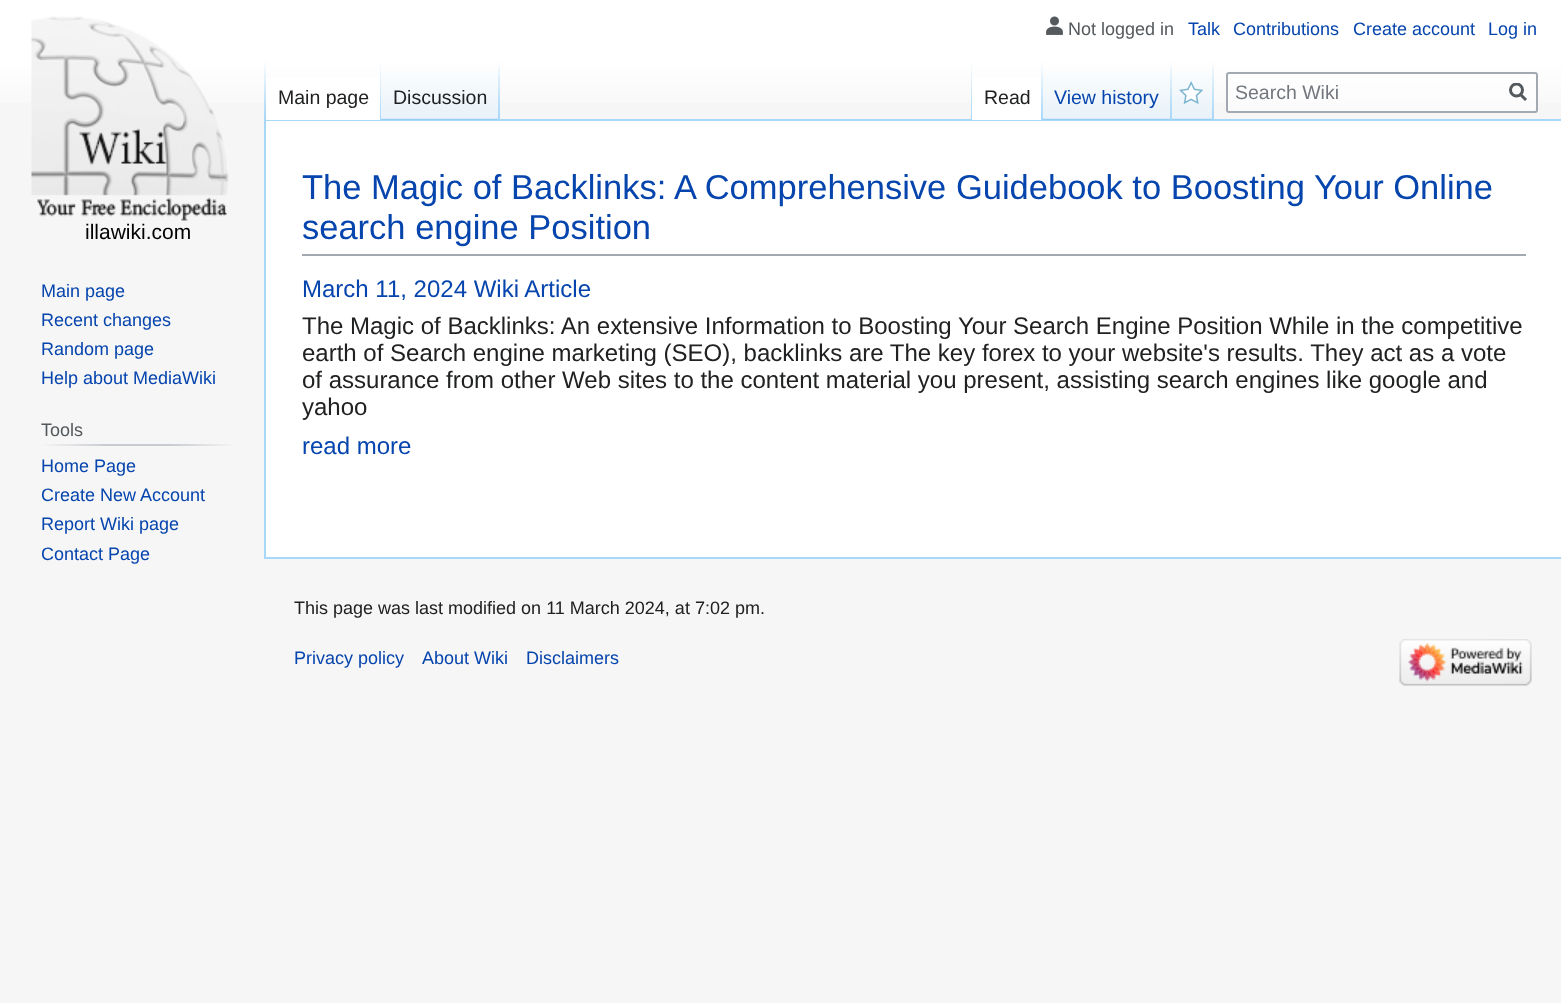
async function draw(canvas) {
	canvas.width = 1561;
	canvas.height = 1003;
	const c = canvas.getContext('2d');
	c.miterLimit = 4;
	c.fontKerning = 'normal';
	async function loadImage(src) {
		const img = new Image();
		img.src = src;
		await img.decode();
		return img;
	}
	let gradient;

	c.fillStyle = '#f6f6f6';
	c.fillRect(0, 0, 1561, 1003);
	gradient = c.createLinearGradient(781, 0, 781, 120);
	gradient.addColorStop(0.5, '#fff');
	gradient.addColorStop(1, '#f6f6f6');
	c.fillStyle = gradient;
	c.fillRect(0, 0, 1561, 103);
	c.drawImage(await loadImage('img1.png'), 1046, 16, 17, 19);
	c.font = '18px Liberation Sans';
	c.fillStyle = '#54595d';
	c.fillText('Not logged in', 1068, 35);
	c.fillStyle = '#0645ad';
	for (const [text, x, y] of [
		['Talk', 1188, 35],
		['Contributions', 1233, 35],
		['Create account', 1353, 35],
		['Log in', 1488, 35],
	]) {
		c.fillText(text, x, y);
	}
	for (const [x, y, w, h, color] of [
		[264, 119, 1297, 2, '#a7d7f9'],
		[264, 557, 1297, 2, '#a7d7f9'],
		[264, 119, 2, 439, '#a7d7f9'],
	]) {
		c.fillStyle = color;
		c.fillRect(x, y, w, h);
	}
	gradient = c.createLinearGradient(265, 60, 265, 120);
	gradient.addColorStop(0, '#a7d7f900');
	gradient.addColorStop(1, '#a7d7f9');
	c.fillStyle = gradient;
	c.fillRect(264, 60, 2, 60);
	c.fillStyle = '#fff';
	c.fillRect(266, 77, 114, 43);
	gradient = c.createLinearGradient(380, 60, 380, 120);
	gradient.addColorStop(0, '#fff');
	gradient.addColorStop(1, '#a7d7f9');
	c.fillStyle = gradient;
	c.fillRect(380, 60, 1, 60);
	c.font = '19.5px Liberation Sans';
	c.fillStyle = '#202122';
	c.fillText('Main page', 278, 104);
	gradient = c.createLinearGradient(440, 120, 440, 60);
	gradient.addColorStop(0, '#77c1f6');
	gradient.addColorStop(0.03, '#e8f2f8');
	gradient.addColorStop(1, '#fff');
	c.fillStyle = gradient;
	c.fillRect(381, 69, 119, 51);
	gradient = c.createLinearGradient(499, 60, 499, 120);
	gradient.addColorStop(0, '#a7d7f900');
	gradient.addColorStop(1, '#a7d7f9');
	c.fillStyle = gradient;
	c.fillRect(498, 60, 2, 60);
	c.fillStyle = '#202122';
	c.fillText('Discussion', 393, 104);
	gradient = c.createLinearGradient(971, 60, 971, 120);
	gradient.addColorStop(0, '#a7d7f900');
	gradient.addColorStop(1, '#a7d7f9');
	c.fillStyle = gradient;
	c.fillRect(971, 60, 1, 60);
	c.fillStyle = '#fff';
	c.fillRect(972, 77, 69, 43);
	gradient = c.createLinearGradient(1042, 60, 1042, 120);
	gradient.addColorStop(0, '#fff');
	gradient.addColorStop(1, '#a7d7f9');
	c.fillStyle = gradient;
	c.fillRect(1041, 60, 2, 60);
	c.fillStyle = '#202122';
	c.fillText('Read', 984, 104);
	gradient = c.createLinearGradient(1107, 120, 1107, 60);
	gradient.addColorStop(0, '#77c1f6');
	gradient.addColorStop(0.03, '#e8f2f8');
	gradient.addColorStop(1, '#fff');
	c.fillStyle = gradient;
	c.fillRect(1043, 69, 129, 51);
	gradient = c.createLinearGradient(1171, 60, 1171, 120);
	gradient.addColorStop(0, '#a7d7f900');
	gradient.addColorStop(1, '#a7d7f9');
	c.fillStyle = gradient;
	c.fillRect(1170, 60, 2, 60);
	c.fillStyle = '#0645ad';
	c.fillText('View history', 1054, 104);
	gradient = c.createLinearGradient(1193, 120, 1193, 60);
	gradient.addColorStop(0, '#77c1f6');
	gradient.addColorStop(0.03, '#e8f2f8');
	gradient.addColorStop(1, '#fff');
	c.fillStyle = gradient;
	c.fillRect(1172, 69, 42, 51);
	gradient = c.createLinearGradient(1213, 60, 1213, 120);
	gradient.addColorStop(0, '#a7d7f900');
	gradient.addColorStop(1, '#a7d7f9');
	c.fillStyle = gradient;
	c.fillRect(1212, 60, 2, 60);
	c.drawImage(await loadImage('img2.png'), 1179, 81, 24, 23);
	c.fillStyle = '#ffffff80';
	c.beginPath();
	c.roundRect(1227, 73, 310, 39, 2);
	c.fill();
	c.strokeStyle = '#a2a9b1';
	c.lineWidth = 2;
	c.stroke();
	c.fillStyle = '#72777d';
	c.fillText('Search Wiki', 1235, 99);
	c.beginPath();
	c.moveTo(1526, 100);
	c.lineTo(1520, 94);
	c.strokeStyle = '#54595d';
	c.lineWidth = 3;
	c.stroke();
	c.save();
	c.beginPath();
	c.rect(1509, 83, 18, 19);
	c.clip();
	c.beginPath();
	c.arc(1516.5, 90, 6, 0, 2 * Math.PI);
	c.stroke();
	c.restore();
	c.drawImage(await loadImage('img3.png'), 31, 16, 198, 205);
	c.font = '21px Liberation Sans';
	c.fillStyle = '#000';
	c.fillText('illawiki.com', 85, 239);
	c.font = '18px Liberation Sans';
	c.fillStyle = '#0645ad';
	for (const [text, x, y] of [
		['Main page', 41, 297],
		['Recent changes', 41, 326],
		['Random page', 41, 355],
		['Help about MediaWiki', 41, 384],
	]) {
		c.fillText(text, x, y);
	}
	gradient = c.createLinearGradient(41, 445, 237, 445);
	gradient.addColorStop(0, '#f6f6f6');
	gradient.addColorStop(0.33, '#c8ccd1');
	gradient.addColorStop(0.66, '#c8ccd1');
	gradient.addColorStop(1, '#f6f6f6');
	c.fillStyle = gradient;
	c.fillRect(41, 444, 196, 2);
	c.fillStyle = '#54595d';
	c.fillText('Tools', 41, 436);
	c.fillStyle = '#0645ad';
	for (const [text, x, y] of [
		['Home Page', 41, 472],
		['Create New Account', 41, 501],
		['Report Wiki page', 41, 530],
		['Contact Page', 41, 560],
	]) {
		c.fillText(text, x, y);
	}
	c.fillStyle = '#fff';
	c.fillRect(266, 121, 1295, 436);
	c.fillStyle = '#a2a9b1';
	c.fillRect(302, 254, 1224, 2);
	c.font = '34.5px Liberation Sans';
	c.fillStyle = '#0645ad';
	c.fillText('The Magic of Backlinks: A Comprehensive Guidebook to Boosting Your Online', 302, 199);
	c.fillText('search engine Position', 302, 239);
	c.font = '24px Liberation Sans';
	c.fillText('March 11, 2024 Wiki Article', 302, 297);
	c.fillStyle = '#202122';
	for (const [text, x, y] of [
		['The Magic of Backlinks: An extensive Information to Boosting Your Search Engine Position While in the competitive', 302, 334],
		['earth of Search engine marketing (SEO), backlinks are The key forex to your website\'s results. They act as a vote', 302, 361],
		['of assurance from other Web sites to the content material you present, assisting search engines like google and', 302, 388],
		['yahoo', 302, 415],
	]) {
		c.fillText(text, x, y);
	}
	c.fillStyle = '#0645ad';
	c.fillText('read more', 302, 454);
	c.font = '18px Liberation Sans';
	c.fillStyle = '#202122';
	c.fillText('This page was last modified on 11 March 2024, at 7:02 pm.', 294, 614);
	c.fillStyle = '#0645ad';
	for (const [text, x, y] of [
		['Privacy policy', 294, 664],
		['About Wiki', 422, 664],
		['Disclaimers', 526, 664],
	]) {
		c.fillText(text, x, y);
	}
	c.drawImage(await loadImage('img4.png'), 1399, 639, 133, 47);
}

draw(document.querySelector('canvas'));
